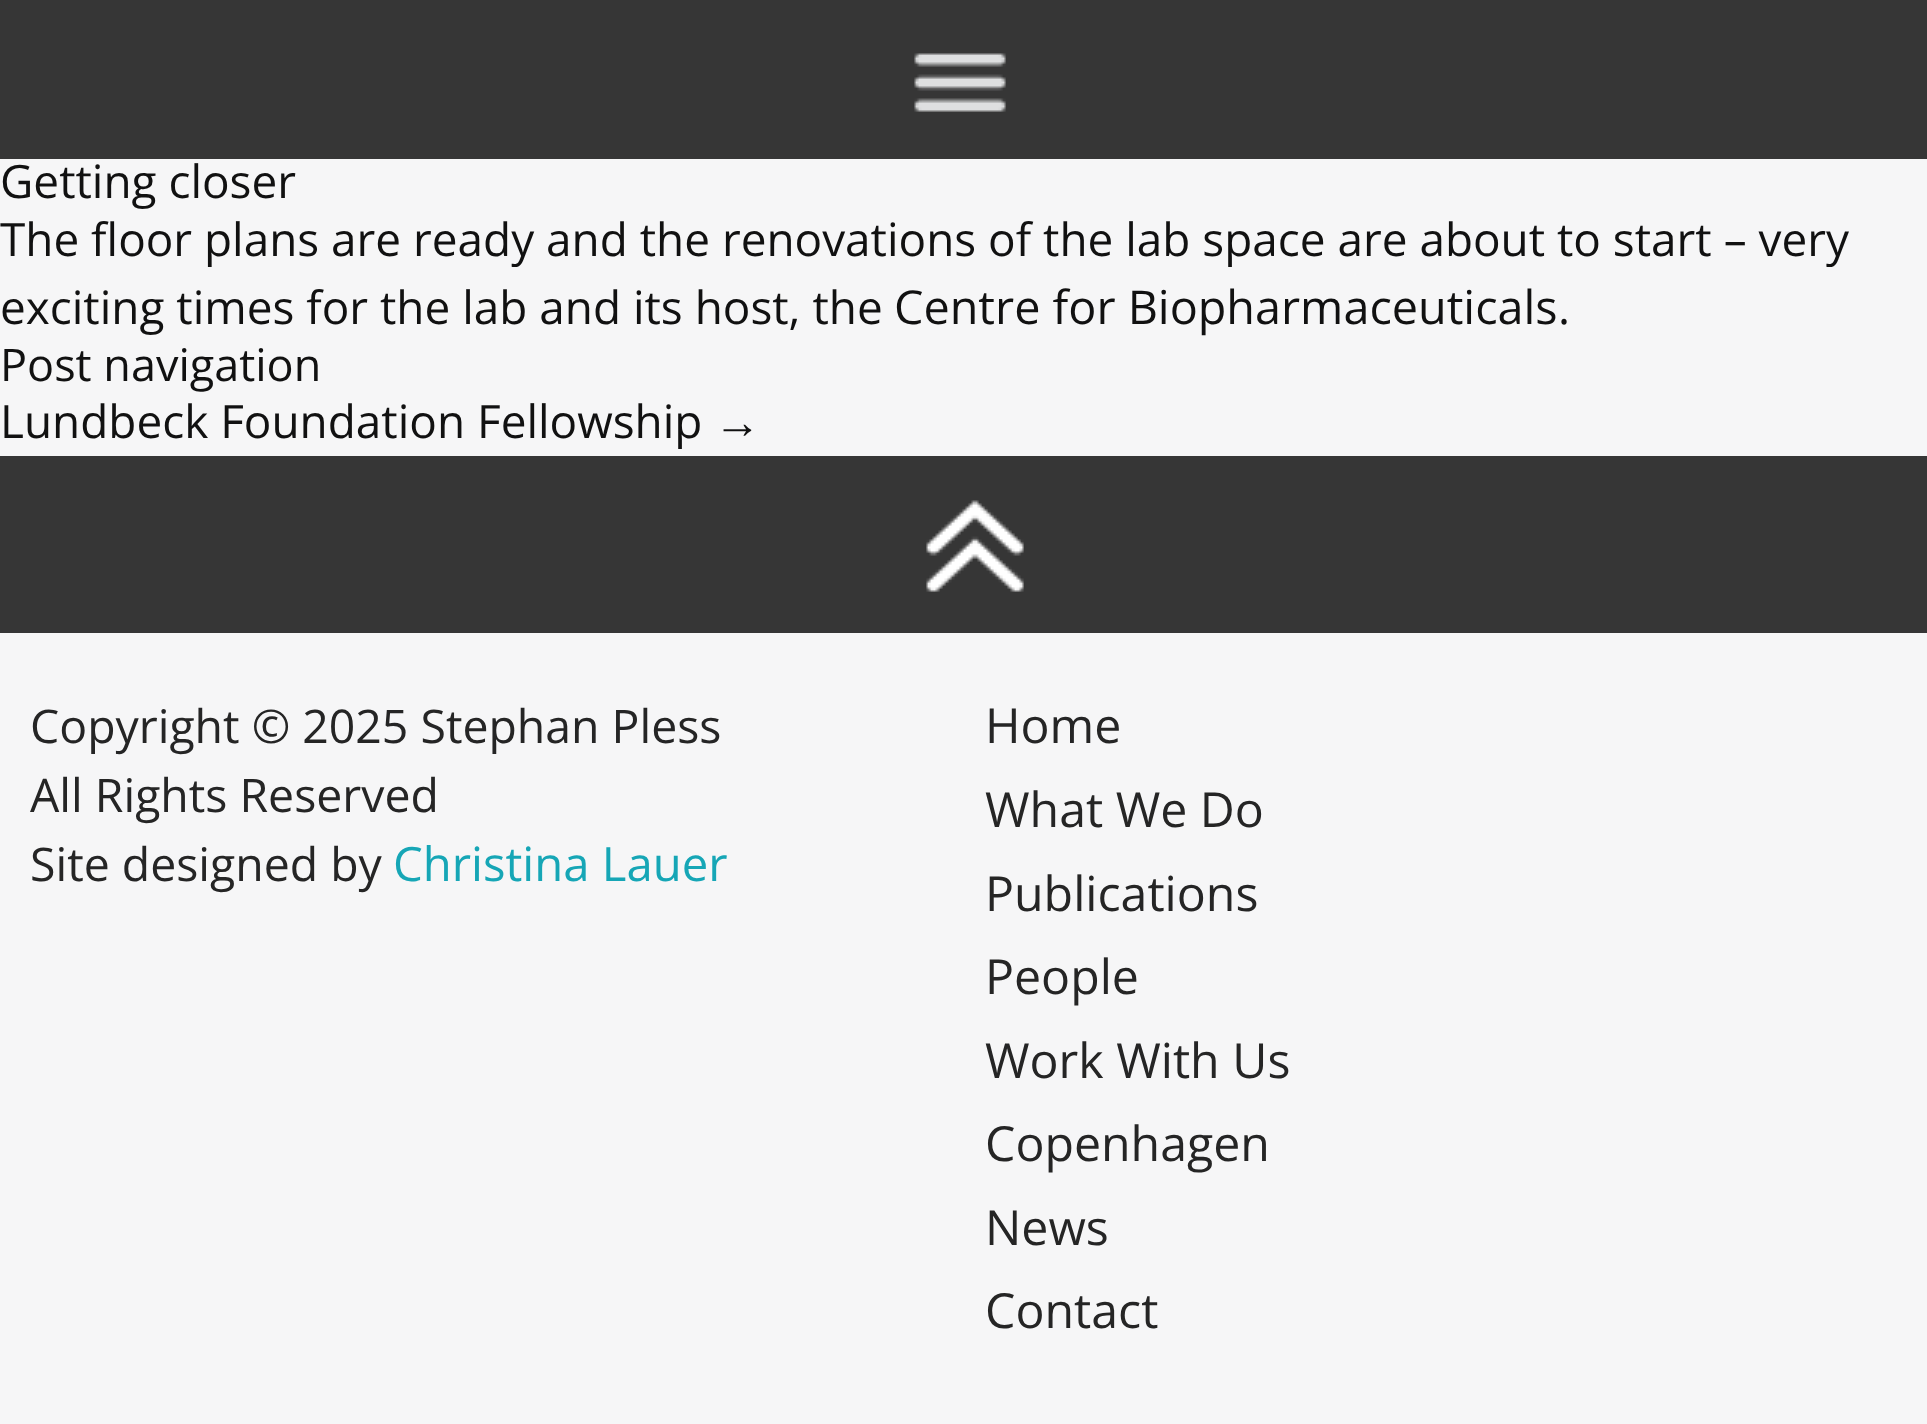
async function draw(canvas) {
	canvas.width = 1927;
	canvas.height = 1424;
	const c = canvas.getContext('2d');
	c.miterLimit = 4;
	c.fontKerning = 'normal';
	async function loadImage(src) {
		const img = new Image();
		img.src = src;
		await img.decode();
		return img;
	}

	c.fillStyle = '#f6f6f7';
	c.fillRect(0, 0, 1927, 1424);
	c.fillStyle = '#363636';
	c.fillRect(0, 0, 1927, 159);
	c.drawImage(await loadImage('img1.png'), 914, 53, 92, 59);
	c.font = '45.9px Open Sans';
	c.fillStyle = '#111';
	for (const [text, x, y] of [
		['Getting closer', 0, 198],
		['The floor plans are ready and the renovations of the lab space are about to start – very', 0, 256],
		['exciting times for the lab and its host, the', 0, 324],
	]) {
		c.fillText(text, x, y);
	}
	c.font = '46.75px Open Sans';
	c.fillText('Centre for Biopharmaceuticals', 894, 324);
	c.font = '45.9px Open Sans';
	c.fillText('.', 1558, 324);
	c.font = '45px Open Sans';
	c.fillText('Post navigation', 0, 381);
	c.font = '45.9px Open Sans';
	c.fillText('Lundbeck Foundation Fellowship', 0, 438);
	c.font = '46.75px Liberation Serif';
	c.fillText('→', 714, 438);
	c.fillStyle = '#363636';
	c.fillRect(0, 456, 1927, 177);
	c.drawImage(await loadImage('img2.png'), 926, 500, 98, 92);
	c.font = '46.4px Open Sans';
	c.fillStyle = '#252525';
	for (const [text, x, y] of [
		['Copyright © 2025 Stephan Pless', 30, 743],
		['All Rights Reserved', 30, 812],
		['Site designed by', 30, 881],
	]) {
		c.fillText(text, x, y);
	}
	c.font = '47.25px Open Sans';
	c.fillStyle = '#16a6b6';
	c.fillText('Christina Lauer', 393, 881);
	c.font = '48.25px Open Sans';
	c.fillStyle = '#252525';
	for (const [text, x, y] of [
		['Home', 985, 743],
		['What We Do', 985, 827],
		['Publications', 985, 911],
		['People', 985, 994],
		['Work With Us', 985, 1078],
		['Copenhagen', 985, 1161],
		['News', 985, 1245],
		['Contact', 985, 1328],
	]) {
		c.fillText(text, x, y);
	}
}

draw(document.querySelector('canvas'));
